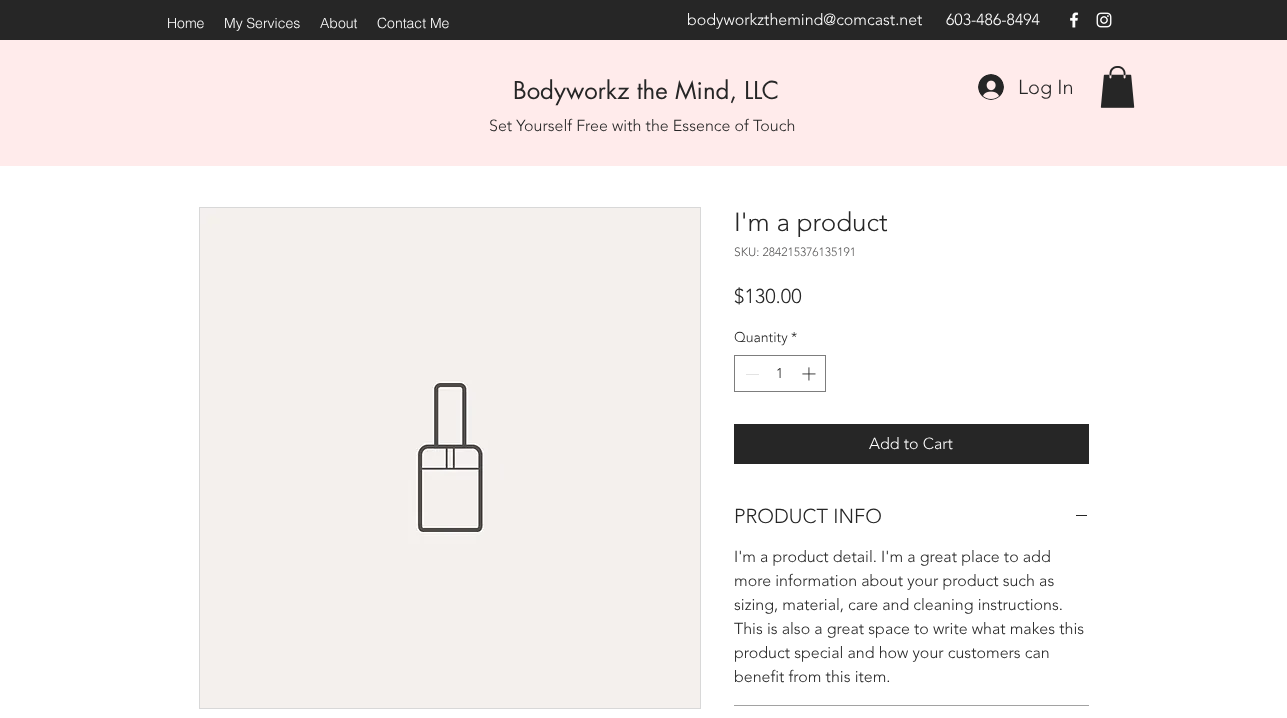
async function draw(canvas) {
	canvas.width = 1287;
	canvas.height = 718;
	const c = canvas.getContext('2d');
	c.miterLimit = 4;
	c.fontKerning = 'normal';
	async function loadImage(src) {
		const img = new Image();
		img.src = src;
		await img.decode();
		return img;
	}

	c.fillStyle = '#fff';
	c.fillRect(0, 0, 1287, 718);
	c.fillStyle = '#262626';
	c.fillRect(0, 0, 1287, 40);
	c.font = '300 14px helvetica';
	c.fillStyle = '#fff';
	for (const [text, x, y] of [
		['Home', 167, 28],
		['My Services', 224, 28],
		['About', 320, 28],
		['Contact Me', 377, 28],
	]) {
		c.fillText(text, x, y);
	}
	c.font = '300 16px "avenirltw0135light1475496"';
	c.fillText('bodyworkzthemind@comcast.net', 687, 25);
	c.fillText('603-486-8494', 946, 25);
	c.drawImage(await loadImage('img1.png'), 1070, 12, 9, 16);
	c.drawImage(await loadImage('img2.png'), 1096, 12, 16, 16);
	c.fillStyle = '#ffebeb';
	c.fillRect(0, 40, 1287, 126);
	c.font = '24px futura';
	c.fillStyle = '#262626';
	c.fillText('Bodyworkz the Mind, LLC', 513, 99);
	c.drawImage(await loadImage('img3.png'), 978, 74, 26, 26);
	c.font = '300 20px "avenirltw0135light1475496"';
	c.fillText('Log In', 1018, 94);
	c.drawImage(await loadImage('img4.png'), 1100, 66, 35, 42);
	c.font = '300 16px "avenirltw0135light1475496"';
	c.fillText('Set Yourself Free with the Essence of Touch', 489, 131);
	c.strokeStyle = '#d8d8d8';
	c.strokeRect(199.5, 207.5, 501, 501);
	c.drawImage(await loadImage('img5.png'), 200, 208, 500, 500);
	c.font = '300 26px "avenirltw0135light1475496"';
	c.fillText('I\'m a product', 734, 231);
	c.font = '300 12px "avenirltw0135light1475496"';
	c.fillStyle = '#5a5959';
	c.fillText('SKU: 284215376135191', 734, 256);
	c.font = '300 20px "avenirltw0135light1475496"';
	c.fillStyle = '#262626';
	c.fillText('$130.00', 734, 303);
	c.font = '300 14px "avenirltw0135light1475496"';
	c.fillText('Quantity', 734, 342);
	c.fillText('*', 791, 342);
	c.strokeStyle = '#7d7d7d';
	c.strokeRect(734.5, 355.5, 91, 36);
	c.fillStyle = '#e3e3e3';
	c.fillRect(746, 374, 13, 1);
	c.fillStyle = '#262626';
	c.fillText('1', 776, 378);
	c.drawImage(await loadImage('img6.png'), 802, 367, 14, 14);
	c.fillRect(734, 424, 355, 40);
	c.font = '300 16px "avenirltw0135light1475496"';
	c.fillStyle = '#fff';
	c.fillText('Add to Cart', 869, 449);
	c.fillStyle = '#a2a2a2';
	c.fillRect(734, 705, 355, 1);
	c.font = '300 20px "avenirltw0135light1475496"';
	c.fillStyle = '#262626';
	c.fillText('PRODUCT INFO', 734, 523);
	c.fillRect(1076, 515, 11, 1);
	c.font = '300 16px "avenirltw0135light1475496"';
	for (const [text, x, y] of [
		['I\'m a product detail. I\'m a great place to add', 734, 562],
		['more information about your product such as', 734, 586],
		['sizing, material, care and cleaning instructions.', 734, 610],
		['This is also a great space to write what makes this', 734, 634],
		['product special and how your customers can', 734, 658],
		['benefit from this item.', 734, 682],
	]) {
		c.fillText(text, x, y);
	}
}

draw(document.querySelector('canvas'));
